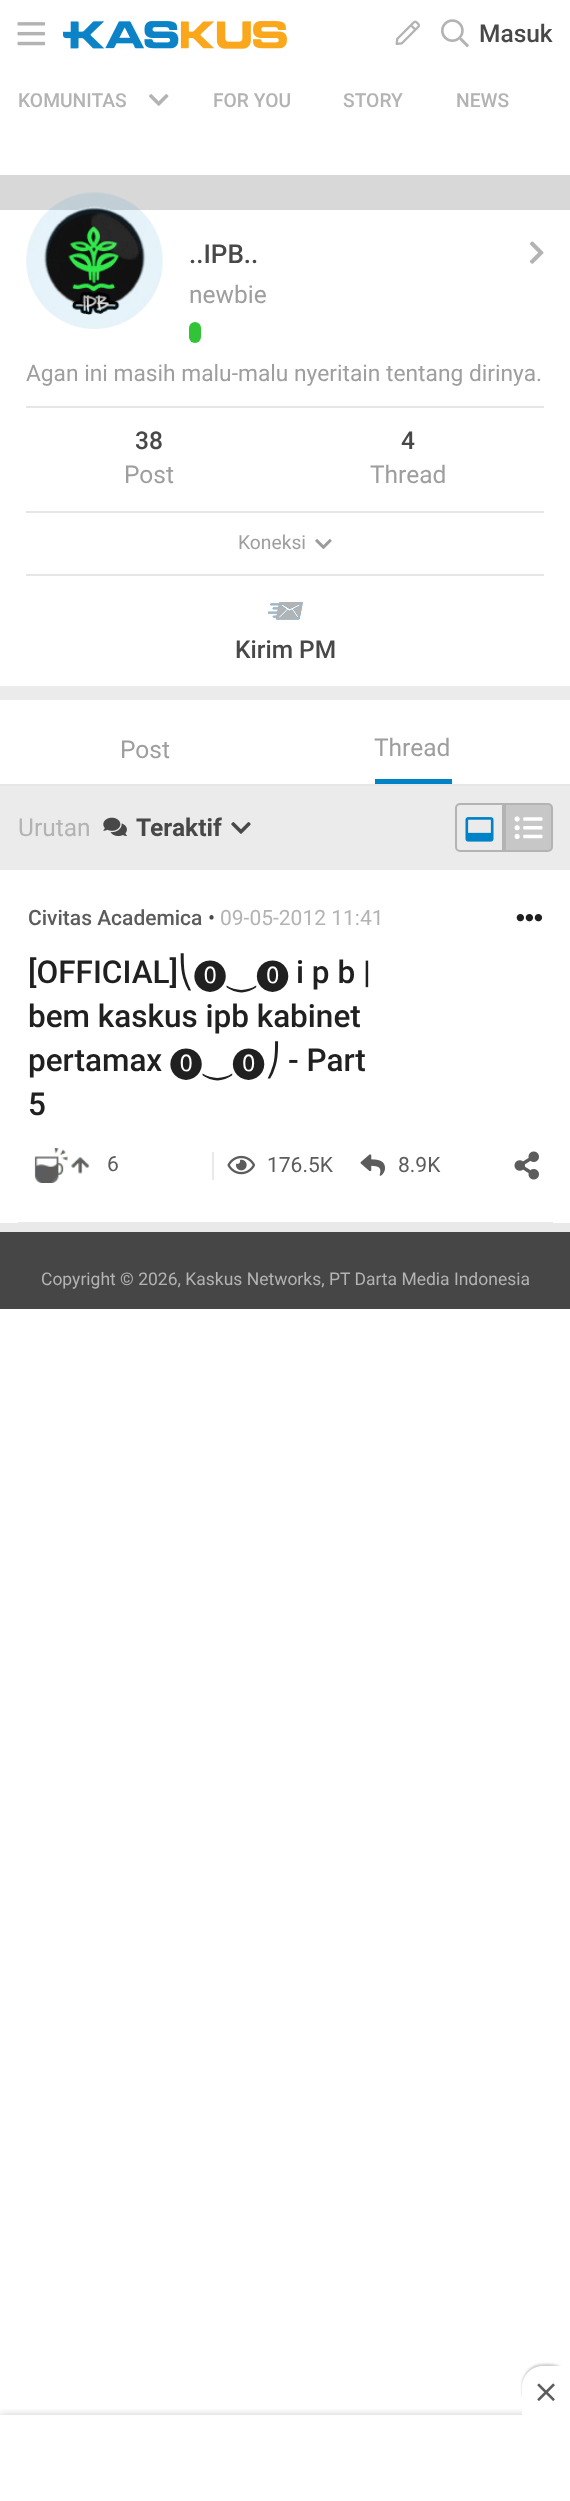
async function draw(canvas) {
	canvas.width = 570;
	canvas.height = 2501;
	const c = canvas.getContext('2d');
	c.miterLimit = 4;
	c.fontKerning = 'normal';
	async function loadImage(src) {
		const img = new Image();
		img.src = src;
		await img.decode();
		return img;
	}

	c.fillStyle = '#fff';
	c.fillRect(0, 0, 570, 2501);
	c.drawImage(await loadImage('img1.png'), 17, 22, 29, 24);
	c.drawImage(await loadImage('img2.png'), 63, 21, 224, 28);
	c.drawImage(await loadImage('img3.png'), 395, 20, 25, 25);
	c.drawImage(await loadImage('img4.png'), 441, 19, 28, 29);
	c.font = '500 24.5px Roboto';
	c.fillStyle = '#484848';
	c.fillText('Masuk', 479, 42);
	c.font = '500 19.25px Roboto';
	c.fillStyle = '#b3b3b3';
	c.fillText('KOMUNITAS', 18, 107);
	c.drawImage(await loadImage('img5.png'), 149, 94, 20, 12);
	for (const [text, x, y] of [
		['FOR YOU', 213, 107],
		['STORY', 343, 107],
		['NEWS', 456, 107],
	]) {
		c.fillText(text, x, y);
	}
	c.fillStyle = '#d8d8d8';
	c.fillRect(0, 175, 570, 35);
	c.drawImage(await loadImage('img7.png'), 43, 206, 103, 109);
	c.drawImage(await loadImage('img6.png'), 26, 192, 137, 137);
	c.font = '500 26px Roboto';
	c.fillStyle = '#484848';
	c.fillText('..IPB..', 189, 263);
	c.font = '24.5px Roboto';
	c.fillStyle = '#9e9e9e';
	c.fillText('newbie', 189, 303);
	c.fillStyle = '#30c436';
	c.beginPath();
	c.roundRect(189, 322, 12, 21, 6);
	c.fill();
	c.drawImage(await loadImage('img8.png'), 530, 241, 14, 23);
	c.fillStyle = '#ebebeb';
	c.fillRect(0, 686, 570, 14);
	c.font = '22.75px Roboto';
	c.fillStyle = '#9e9e9e';
	c.fillText('Agan ini masih malu-malu nyeritain tentang dirinya.', 26, 381);
	c.fillStyle = '#e6e6e6';
	c.fillRect(26, 406, 518, 2);
	c.font = '500 24.5px Roboto';
	c.fillStyle = '#484848';
	c.fillText('38', 135, 449);
	c.font = '24.5px Roboto';
	c.fillStyle = '#9e9e9e';
	c.fillText('Post', 124, 483);
	c.font = '500 24.5px Roboto';
	c.fillStyle = '#484848';
	c.fillText('4', 401, 449);
	c.font = '24.5px Roboto';
	c.fillStyle = '#9e9e9e';
	c.fillText('Thread', 370, 483);
	c.fillStyle = '#e6e6e6';
	c.fillRect(26, 511, 518, 2);
	c.font = '19.25px Roboto';
	c.fillStyle = '#9e9e9e';
	c.fillText('Koneksi', 238, 549);
	c.drawImage(await loadImage('img9.png'), 315, 539, 17, 10);
	c.fillStyle = '#e6e6e6';
	c.fillRect(26, 574, 518, 2);
	c.drawImage(await loadImage('img10.png'), 268, 602, 35, 18);
	c.font = '500 24.5px Roboto';
	c.fillStyle = '#484848';
	c.fillText('Kirim PM', 235, 658);
	c.fillStyle = '#e6e6e6';
	c.fillRect(0, 784, 570, 2);
	c.font = '24.5px Roboto';
	c.fillStyle = '#9e9e9e';
	c.fillText('Post', 120, 758);
	c.fillStyle = '#0082c6';
	c.fillRect(375, 779, 77, 5);
	c.fillStyle = '#9e9e9e';
	c.fillText('Thread', 374, 756);
	c.fillStyle = '#ebebeb';
	c.fillRect(0, 786, 570, 84);
	c.fillStyle = '#b3b3b3';
	c.fillText('Urutan', 18, 836);
	c.drawImage(await loadImage('img11.png'), 103, 817, 24, 20);
	c.font = 'bold 24.5px Roboto';
	c.fillStyle = '#484848';
	c.fillText('Teraktif', 136, 836);
	c.drawImage(await loadImage('img12.png'), 231, 822, 20, 12);
	c.beginPath();
	c.roundRect(456, 804, 47, 47, [4, 0, 0, 4]);
	c.strokeStyle = '#b3b3b3';
	c.lineWidth = 2;
	c.stroke();
	c.drawImage(await loadImage('img13.png'), 465, 817, 29, 25);
	c.fillStyle = '#c7c7c7';
	c.beginPath();
	c.roundRect(505, 804, 47, 47, [0, 4, 4, 0]);
	c.fill();
	c.stroke();
	c.drawImage(await loadImage('img14.png'), 514, 816, 29, 23);
	c.fillStyle = '#ebebeb';
	c.fillRect(18, 1222, 535, 1);
	c.font = '500 21px Roboto';
	c.fillStyle = '#5c5c5c';
	c.fillText('Civitas Academica', 28, 925);
	c.font = '21px Roboto';
	c.fillStyle = '#484848';
	c.fillText('•', 208, 925);
	c.fillStyle = '#b3b3b3';
	c.fillText('09-05-2012 11:41', 220, 925);
	c.drawImage(await loadImage('img15.png'), 516, 914, 27, 8);
	c.font = '500 31.5px Roboto';
	c.fillStyle = '#202020';
	c.fillText('[OFFICIAL]', 28, 983);
	c.font = '31.5px DejaVu Sans';
	c.fillText('⎝', 178, 983);
	c.font = '31.5px FreeSans';
	c.fillText('⓿⏝⓿', 194, 983);
	c.font = '500 31.5px Roboto';
	for (const [text, x, y] of [
		['i p b |', 296, 983],
		['bem kaskus ipb kabinet', 28, 1027],
		['pertamax', 28, 1071],
	]) {
		c.fillText(text, x, y);
	}
	c.font = '31.5px FreeSans';
	c.fillText('⓿⏝⓿', 170, 1071);
	c.font = '31.5px DejaVu Sans';
	c.fillText('⎠', 265, 1071);
	c.font = '500 31.5px Roboto';
	c.fillText('- Part', 288, 1071);
	c.fillText('5', 28, 1115);
	c.drawImage(await loadImage('img16.png'), 34, 1148, 56, 35);
	c.font = '21px Roboto';
	c.fillStyle = '#5c5c5c';
	c.fillText('6', 107, 1171);
	c.fillStyle = '#e9e9e9';
	c.fillRect(212, 1152, 2, 28);
	c.drawImage(await loadImage('img17.png'), 227, 1155, 28, 20);
	c.fillStyle = '#5c5c5c';
	c.fillText('176.5K', 267, 1172);
	c.drawImage(await loadImage('img18.png'), 360, 1154, 25, 22);
	c.fillText('8.9K', 398, 1172);
	c.drawImage(await loadImage('img19.png'), 514, 1151, 25, 29);
	c.fillStyle = '#e9e9e9';
	c.fillRect(0, 1223, 570, 9);
	c.fillStyle = '#464646';
	c.fillRect(0, 1232, 570, 77);
	c.font = '17.5px Roboto';
	c.fillStyle = '#b3b3b3';
	c.fillText('Copyright © 2026, Kaskus Networks, PT Darta Media Indonesia', 41, 1285);
	c.save();
	c.beginPath();
	c.rect(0, 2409, 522, 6);
	c.clip();
	c.fillStyle = '#00000033';
	c.filter = 'blur(4.5px)';
	c.beginPath();
	c.rect(0, 2415, 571, 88);
	c.fill();
	c.filter = 'none';
	c.restore();
	c.fillStyle = '#00000033';
	c.filter = 'blur(1px)';
	c.beginPath();
	c.roundRect(522, 2364, 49, 49, 21);
	c.fill();
	c.filter = 'none';
	c.fillStyle = '#fff';
	c.beginPath();
	c.moveTo(543, 2366);
	c.lineTo(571, 2366);
	c.lineTo(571, 2415);
	c.lineTo(522, 2415);
	c.lineTo(522, 2387);
	c.bezierCurveTo(522, 2375.5, 531.5, 2366, 543, 2366);
	c.closePath();
	c.fill();
	c.drawImage(await loadImage('img20.png'), 537, 2383, 18, 18);
}

draw(document.querySelector('canvas'));
